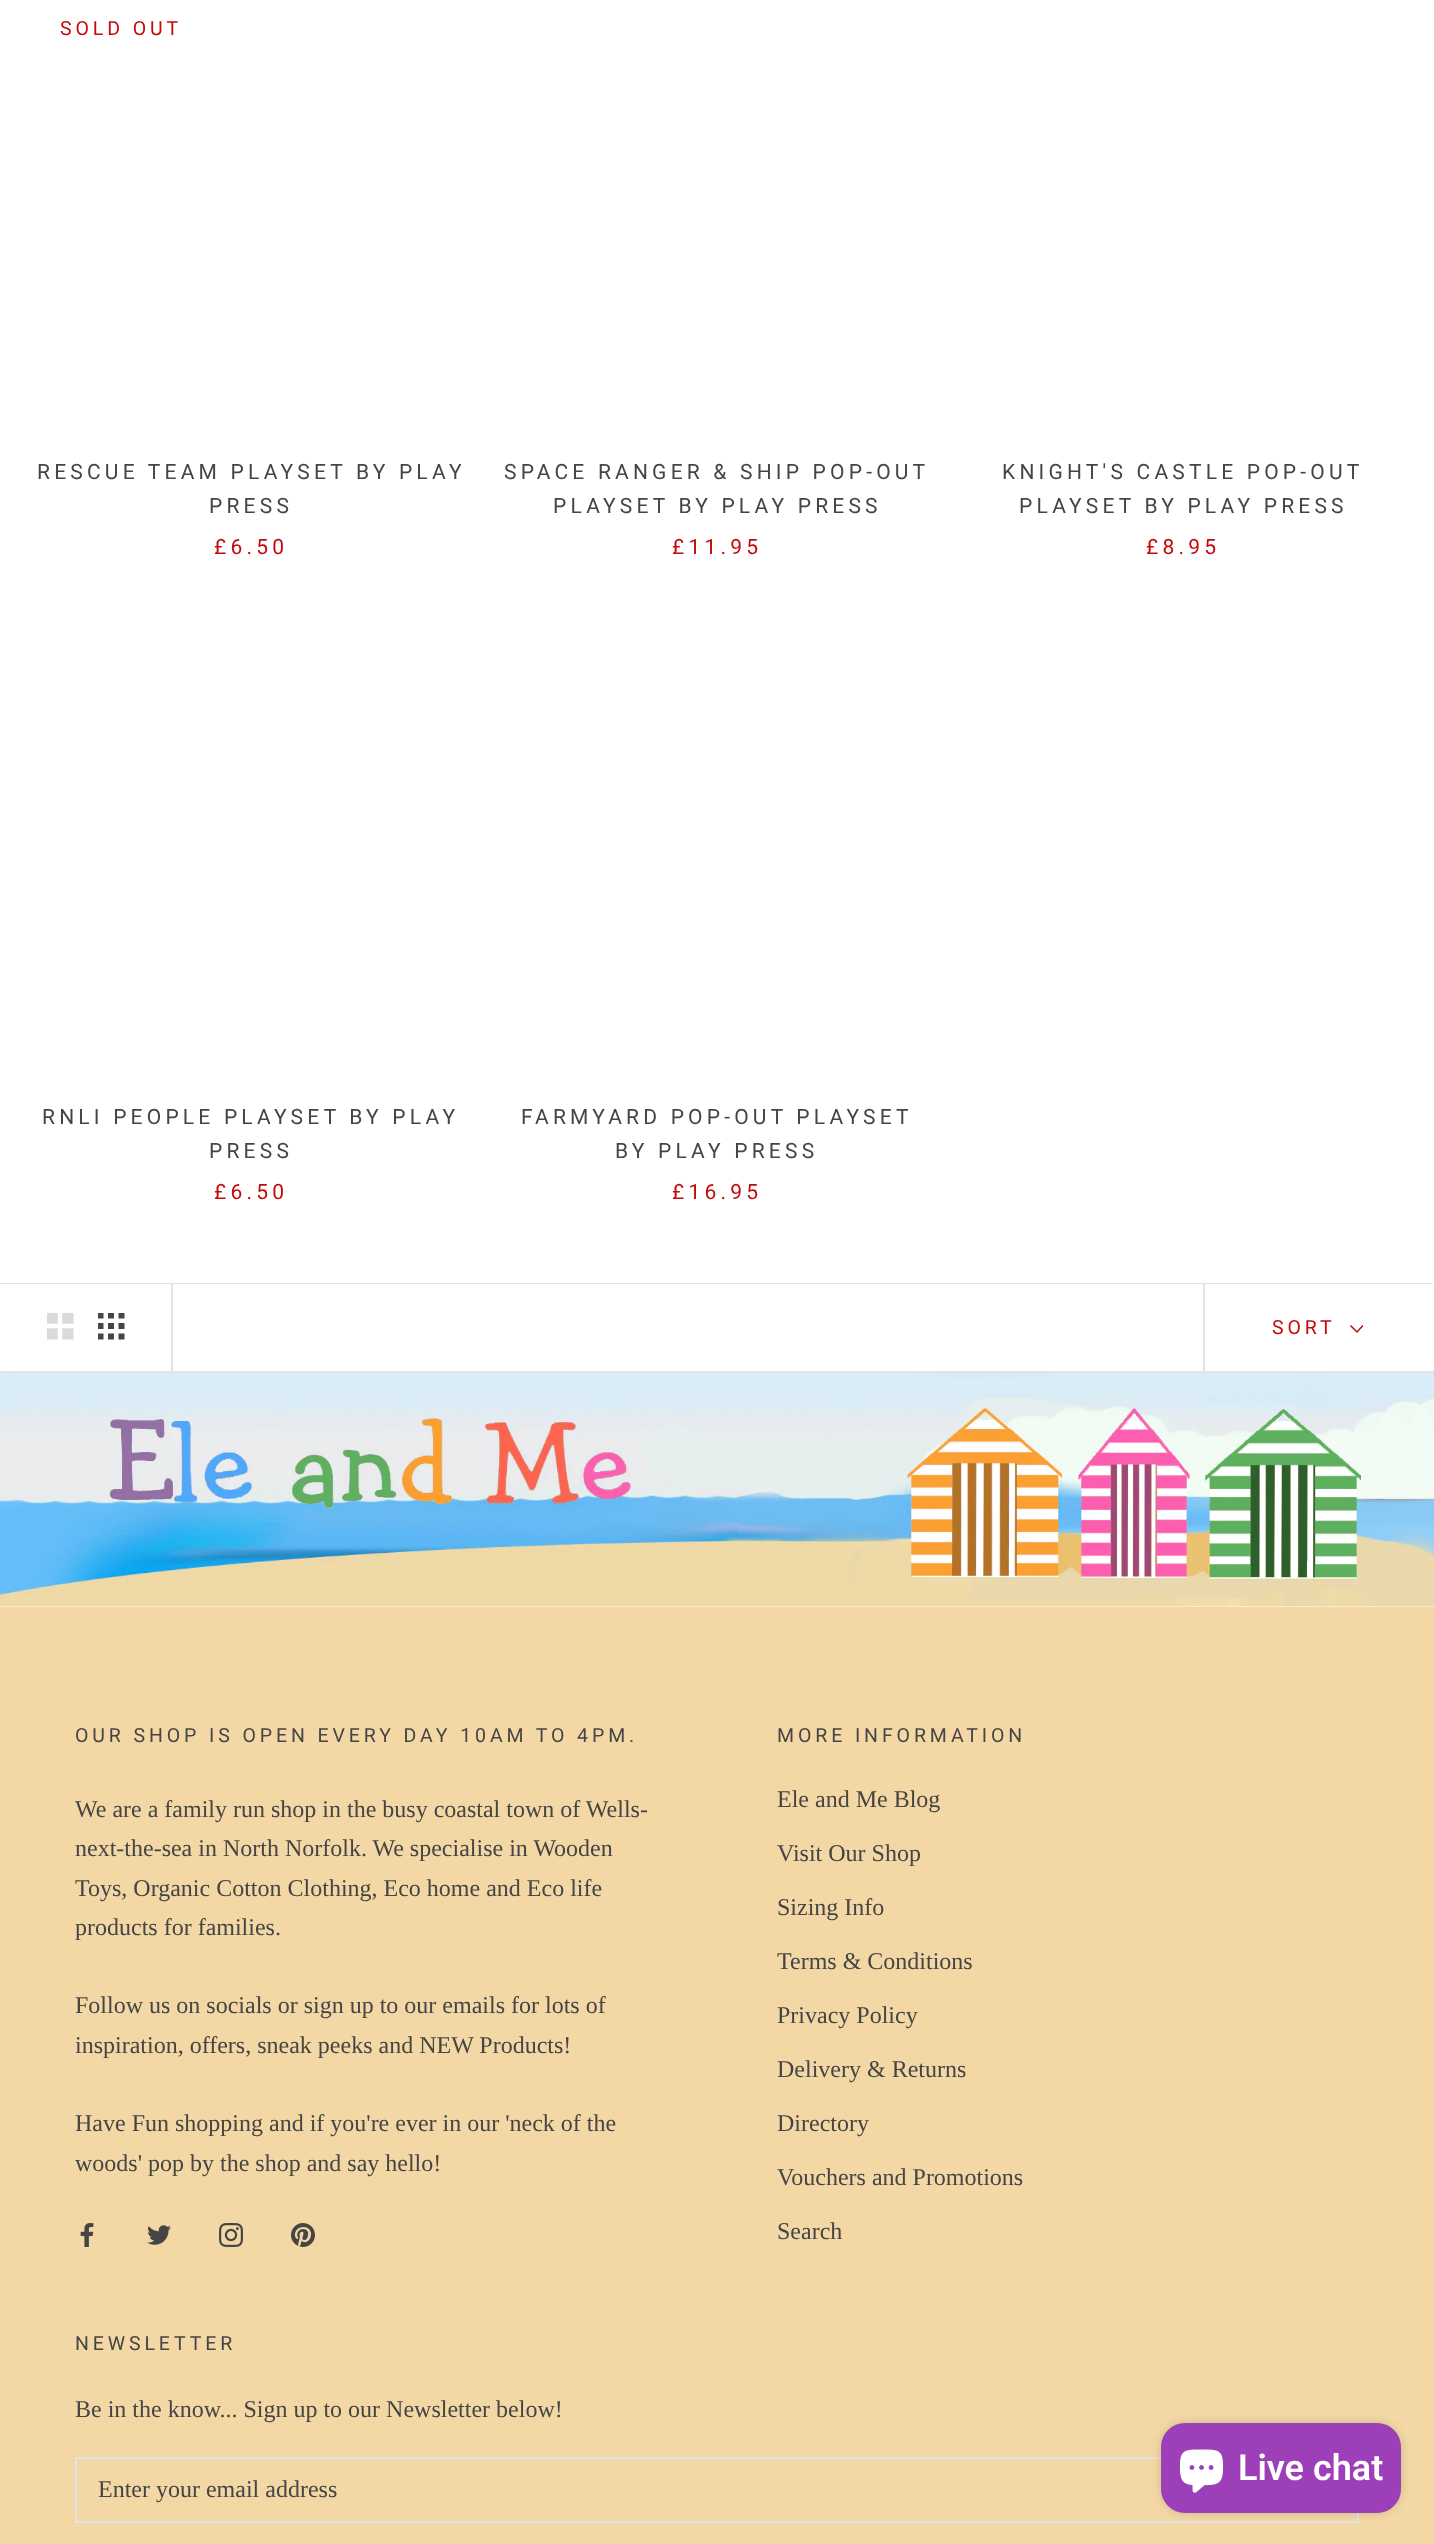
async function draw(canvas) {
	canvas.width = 1434;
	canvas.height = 2544;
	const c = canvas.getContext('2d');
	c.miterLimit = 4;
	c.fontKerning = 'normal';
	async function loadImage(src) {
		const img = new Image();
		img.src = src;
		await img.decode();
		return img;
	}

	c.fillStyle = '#fff';
	c.fillRect(0, 0, 1434, 2544);
	c.letterSpacing = '3.9px';
	c.font = '19.5px Roboto';
	c.fillStyle = '#c40a0a';
	c.fillText('SOLD OUT', 60, 35);
	c.letterSpacing = '4.2px';
	c.font = '21px Roboto';
	c.fillStyle = '#454545';
	c.fillText('RESCUE TEAM PLAYSET BY PLAY', 37, 479);
	c.fillText('PRESS', 209, 513);
	c.fillStyle = '#c40a0a';
	c.fillText('£6.50', 214, 554);
	c.fillStyle = '#454545';
	c.fillText('SPACE RANGER & SHIP POP-OUT', 504, 479);
	c.fillText('PLAYSET BY PLAY PRESS', 553, 513);
	c.fillStyle = '#c40a0a';
	c.fillText('£11.95', 672, 554);
	c.fillStyle = '#454545';
	c.fillText('KNIGHT\'S CASTLE POP-OUT', 1002, 479);
	c.fillText('PLAYSET BY PLAY PRESS', 1019, 513);
	c.fillStyle = '#c40a0a';
	c.fillText('£8.95', 1146, 554);
	c.fillStyle = '#454545';
	c.fillText('RNLI PEOPLE PLAYSET BY PLAY', 42, 1124);
	c.fillText('PRESS', 209, 1158);
	c.fillStyle = '#c40a0a';
	c.fillText('£6.50', 214, 1199);
	c.fillStyle = '#454545';
	c.fillText('FARMYARD POP-OUT PLAYSET', 521, 1124);
	c.fillText('BY PLAY PRESS', 615, 1158);
	c.fillStyle = '#c40a0a';
	c.fillText('£16.95', 672, 1199);
	c.fillStyle = '#e3e3e3';
	c.beginPath();
	c.moveTo(-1, 1283);
	c.lineTo(-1, 1370);
	c.lineTo(0, 1370);
	c.lineTo(0, 1284);
	c.lineTo(1433, 1284);
	c.lineTo(1433, 1283);
	c.closePath();
	c.fill();
	c.drawImage(await loadImage('img3.png'), 0, 1371, 1434, 236);
	c.beginPath();
	c.moveTo(2, 1371);
	c.lineTo(2, 1373);
	c.lineTo(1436, 1373);
	c.lineTo(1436, 1286);
	c.lineTo(1434, 1286);
	c.lineTo(1434, 1371);
	c.closePath();
	c.fill();
	c.fillRect(171, 1284, 2, 87);
	c.drawImage(await loadImage('img1.png'), 47, 1313, 27, 27);
	c.drawImage(await loadImage('img2.png'), 98, 1313, 27, 27);
	c.fillRect(1203, 1284, 2, 87);
	c.letterSpacing = '3.9px';
	c.font = '19.5px Roboto';
	c.fillStyle = '#c40a0a';
	c.fillText('SORT', 1272, 1334);
	c.beginPath();
	c.moveTo(1362.5, 1326);
	c.lineTo(1357, 1332);
	c.lineTo(1351, 1326);
	c.strokeStyle = '#c40a0a';
	c.lineWidth = 1.5;
	c.lineCap = 'square';
	c.stroke();
	c.fillStyle = '#f3d8a5';
	c.fillRect(0, 1607, 1434, 937);
	c.fillStyle = '#454545';
	c.fillText('OUR SHOP IS OPEN EVERY DAY 10AM TO 4PM.', 75, 1742);
	c.letterSpacing = '0px';
	c.font = '24px Liberation Serif';
	for (const [text, x, y] of [
		['We are a family run shop in the busy coastal town of Wells-', 75, 1817],
		['next-the-sea in North Norfolk. We specialise in Wooden', 75, 1856],
		['Toys, Organic Cotton Clothing, Eco home and Eco life', 75, 1896],
		['products for families.', 75, 1935],
		['Follow us on socials or sign up to our emails for lots of', 75, 2013],
		['inspiration, offers, sneak peeks and NEW Products!', 75, 2053],
		['Have Fun shopping and if you\'re ever in our \'neck of the', 75, 2131],
		['woods\' pop by the shop and say hello!', 75, 2171],
	]) {
		c.fillText(text, x, y);
	}
	c.drawImage(await loadImage('img4.png'), 80, 2223, 14, 24);
	c.drawImage(await loadImage('img5.png'), 147, 2225, 24, 20);
	c.drawImage(await loadImage('img6.png'), 219, 2223, 24, 24);
	c.drawImage(await loadImage('img7.png'), 291, 2223, 24, 24);
	c.letterSpacing = '3.9px';
	c.font = '19.5px Roboto';
	c.fillText('MORE INFORMATION', 777, 1742);
	c.letterSpacing = '0px';
	c.font = '24px Liberation Serif';
	for (const [text, x, y] of [
		['Ele and Me Blog', 777, 1807],
		['Visit Our Shop', 777, 1861],
		['Sizing Info', 777, 1915],
		['Terms & Conditions', 777, 1969],
		['Privacy Policy', 777, 2023],
		['Delivery & Returns', 777, 2077],
		['Directory', 777, 2131],
		['Vouchers and Promotions', 777, 2185],
		['Search', 777, 2239],
	]) {
		c.fillText(text, x, y);
	}
	c.letterSpacing = '3.9px';
	c.font = '19.5px Roboto';
	c.fillText('NEWSLETTER', 75, 2350);
	c.letterSpacing = '0px';
	c.font = '24px Liberation Serif';
	c.fillText('Be in the know... Sign up to our Newsletter below!', 75, 2417);
	c.strokeStyle = '#e3e3e3';
	c.lineWidth = 2;
	c.strokeRect(76, 2458, 1282, 64);
	c.fillText('Enter your email address', 98, 2497);
	c.fillStyle = '#00000026';
	c.filter = 'blur(4px)';
	c.beginPath();
	c.roundRect(1161, 2423, 240, 90, 24);
	c.fill();
	c.filter = 'none';
	c.fillStyle = '#9e3fba';
	c.beginPath();
	c.roundRect(1161, 2423, 240, 90, 24);
	c.fill();
	c.drawImage(await loadImage('img8.png'), 1179, 2449, 45, 44);
	c.font = '600 36px Roboto';
	c.fillStyle = '#fff';
	c.fillText('Live chat', 1238, 2480);
}

draw(document.querySelector('canvas'));
